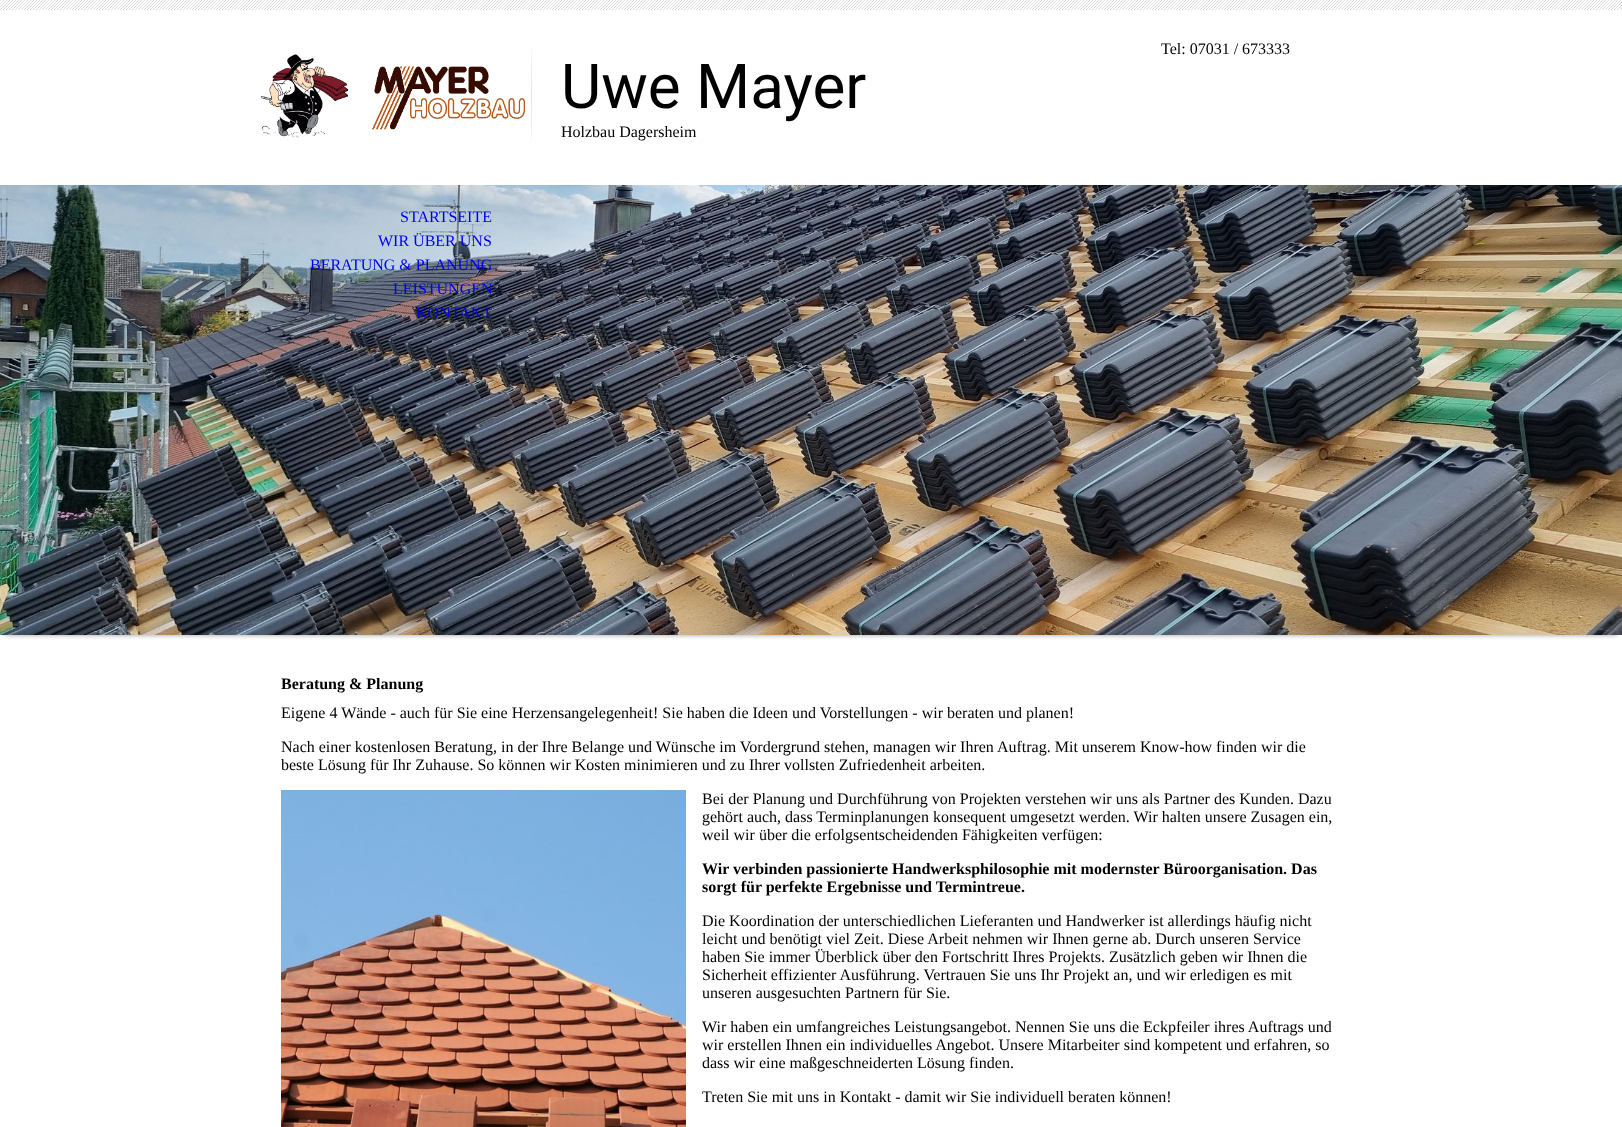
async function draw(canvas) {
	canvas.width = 1622;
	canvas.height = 1127;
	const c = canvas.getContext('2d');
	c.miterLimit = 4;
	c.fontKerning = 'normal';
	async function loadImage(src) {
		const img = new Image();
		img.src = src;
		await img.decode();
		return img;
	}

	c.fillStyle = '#fff';
	c.fillRect(0, 0, 1622, 1127);
	c.drawImage(await loadImage('img1.png'), 0, 0, 1622, 10);
	c.font = '16px Liberation Serif';
	c.fillStyle = '#000';
	c.fillText('Tel: 07031 / 673333', 1161, 54);
	c.drawImage(await loadImage('img2.png'), 261, 54, 264, 84);
	c.drawImage(await loadImage('img3.png'), 531, 48, 1, 94);
	c.font = '62px Roboto';
	c.fillText('Uwe Mayer', 561, 108);
	c.font = '16px Liberation Serif';
	c.fillText('Holzbau Dagersheim', 561, 137);
	c.fillStyle = '#00000066';
	c.filter = 'blur(2.5px)';
	c.beginPath();
	c.rect(5, 195, 1612, 440);
	c.fill();
	c.filter = 'none';
	c.drawImage(await loadImage('img4.png'), 0, 185, 1622, 450);
	c.fillStyle = '#00e';
	for (const [text, x, y] of [
		['STARTSEITE', 400, 222],
		['WIR ÜBER UNS', 378, 246],
		['BERATUNG & PLANUNG', 310, 270],
		['LEISTUNGEN', 393, 294],
		['KONTAKT', 416, 318],
	]) {
		c.fillText(text, x, y);
	}
	c.font = 'bold 16px Liberation Serif';
	c.fillStyle = '#000';
	c.fillText('Beratung & Planung', 281, 689);
	c.font = '16px Liberation Serif';
	for (const [text, x, y] of [
		['Eigene 4 Wände - auch für Sie eine Herzensangelegenheit! Sie haben die Ideen und Vorstellungen - wir beraten und planen!', 281, 718],
		['Nach einer kostenlosen Beratung, in der Ihre Belange und Wünsche im Vordergrund stehen, managen wir Ihren Auftrag. Mit unserem Know-how finden wir die', 281, 752],
		['beste Lösung für Ihr Zuhause. So können wir Kosten minimieren und zu Ihrer vollsten Zufriedenheit arbeiten.', 281, 770],
	]) {
		c.fillText(text, x, y);
	}
	c.drawImage(await loadImage('img5.png'), 281, 790, 405, 337);
	for (const [text, x, y] of [
		['Bei der Planung und Durchführung von Projekten verstehen wir uns als Partner des Kunden. Dazu', 702, 804],
		['gehört auch, dass Terminplanungen konsequent umgesetzt werden. Wir halten unsere Zusagen ein,', 702, 822],
		['weil wir über die erfolgsentscheidenden Fähigkeiten verfügen:', 702, 840],
	]) {
		c.fillText(text, x, y);
	}
	c.font = 'bold 16px Liberation Serif';
	c.fillText('Wir verbinden passionierte Handwerksphilosophie mit modernster Büroorganisation. Das', 702, 874);
	c.fillText('sorgt für perfekte Ergebnisse und Termintreue.', 702, 892);
	c.font = '16px Liberation Serif';
	for (const [text, x, y] of [
		['Die Koordination der unterschiedlichen Lieferanten und Handwerker ist allerdings häufig nicht', 702, 926],
		['leicht und benötigt viel Zeit. Diese Arbeit nehmen wir Ihnen gerne ab. Durch unseren Service', 702, 944],
		['haben Sie immer Überblick über den Fortschritt Ihres Projekts. Zusätzlich geben wir Ihnen die', 702, 962],
		['Sicherheit effizienter Ausführung. Vertrauen Sie uns Ihr Projekt an, und wir erledigen es mit', 702, 980],
		['unseren ausgesuchten Partnern für Sie.', 702, 998],
		['Wir haben ein umfangreiches Leistungsangebot. Nennen Sie uns die Eckpfeiler ihres Auftrags und', 702, 1032],
		['wir erstellen Ihnen ein individuelles Angebot. Unsere Mitarbeiter sind kompetent und erfahren, so', 702, 1050],
		['dass wir eine maßgeschneiderten Lösung finden.', 702, 1068],
		['Treten Sie mit uns in Kontakt - damit wir Sie individuell beraten können!', 702, 1102],
	]) {
		c.fillText(text, x, y);
	}
}

draw(document.querySelector('canvas'));
